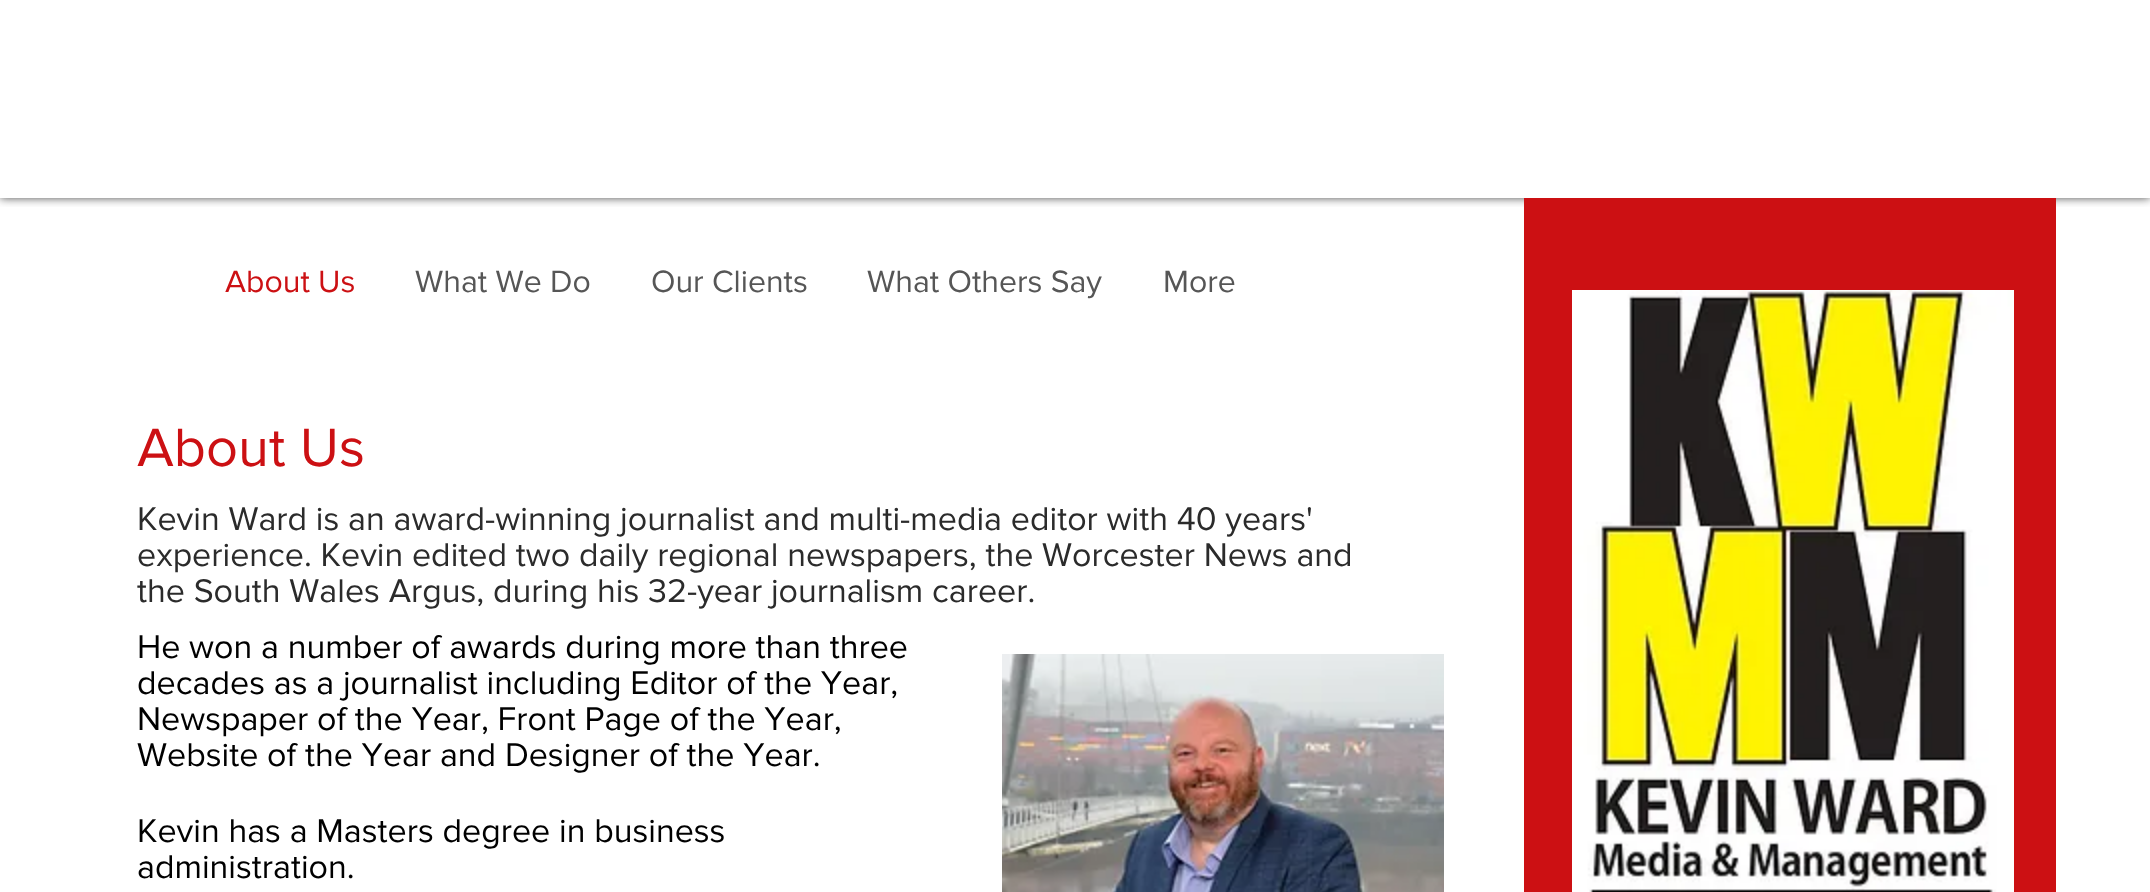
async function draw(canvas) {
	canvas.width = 2150;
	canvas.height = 892;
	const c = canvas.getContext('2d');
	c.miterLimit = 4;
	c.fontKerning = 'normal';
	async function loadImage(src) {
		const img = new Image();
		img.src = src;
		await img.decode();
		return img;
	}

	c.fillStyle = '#fff';
	c.fillRect(0, 0, 2150, 892);
	c.save();
	c.beginPath();
	c.rect(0, 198, 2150, 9);
	c.clip();
	c.fillStyle = '#000000b3';
	c.filter = 'blur(5px)';
	c.beginPath();
	c.rect(0, 0, 2150, 198);
	c.fill();
	c.filter = 'none';
	c.restore();
	c.font = '32px "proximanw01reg"';
	c.fillStyle = '#cc1013';
	c.fillText('About Us', 225, 292);
	c.fillStyle = '#565656';
	for (const [text, x, y] of [
		['What We Do', 415, 292],
		['Our Clients', 651, 292],
		['What Others Say', 867, 292],
		['More', 1163, 292],
	]) {
		c.fillText(text, x, y);
	}
	c.fillStyle = '#cc1013';
	c.fillRect(1524, 198, 532, 694);
	c.drawImage(await loadImage('img1.png'), 1572, 290, 442, 602);
	c.font = '56px "proximanw01reg"';
	c.fillText('About Us', 137, 466);
	c.font = '34px "proximanw01reg"';
	c.fillStyle = '#2b2b2b';
	for (const [text, x, y] of [
		['Kevin Ward is an award-winning journalist and multi-media editor with 40 years\'', 137, 530],
		['experience. Kevin edited two daily regional newspapers, the Worcester News and', 137, 566],
		['the South Wales Argus, during his 32-year journalism career.', 137, 602],
	]) {
		c.fillText(text, x, y);
	}
	c.fillStyle = '#000';
	for (const [text, x, y] of [
		['He won a number of awards during more than three', 137, 658],
		['decades as a journalist including Editor of the Year,', 137, 694],
		['Newspaper of the Year, Front Page of the Year,', 137, 730],
		['Website of the Year and Designer of the Year.', 137, 766],
		['Kevin has a Masters degree in business', 137, 842],
		['administration.', 137, 878],
	]) {
		c.fillText(text, x, y);
	}
	c.drawImage(await loadImage('img2.png'), 1002, 654, 442, 238);
}

draw(document.querySelector('canvas'));
